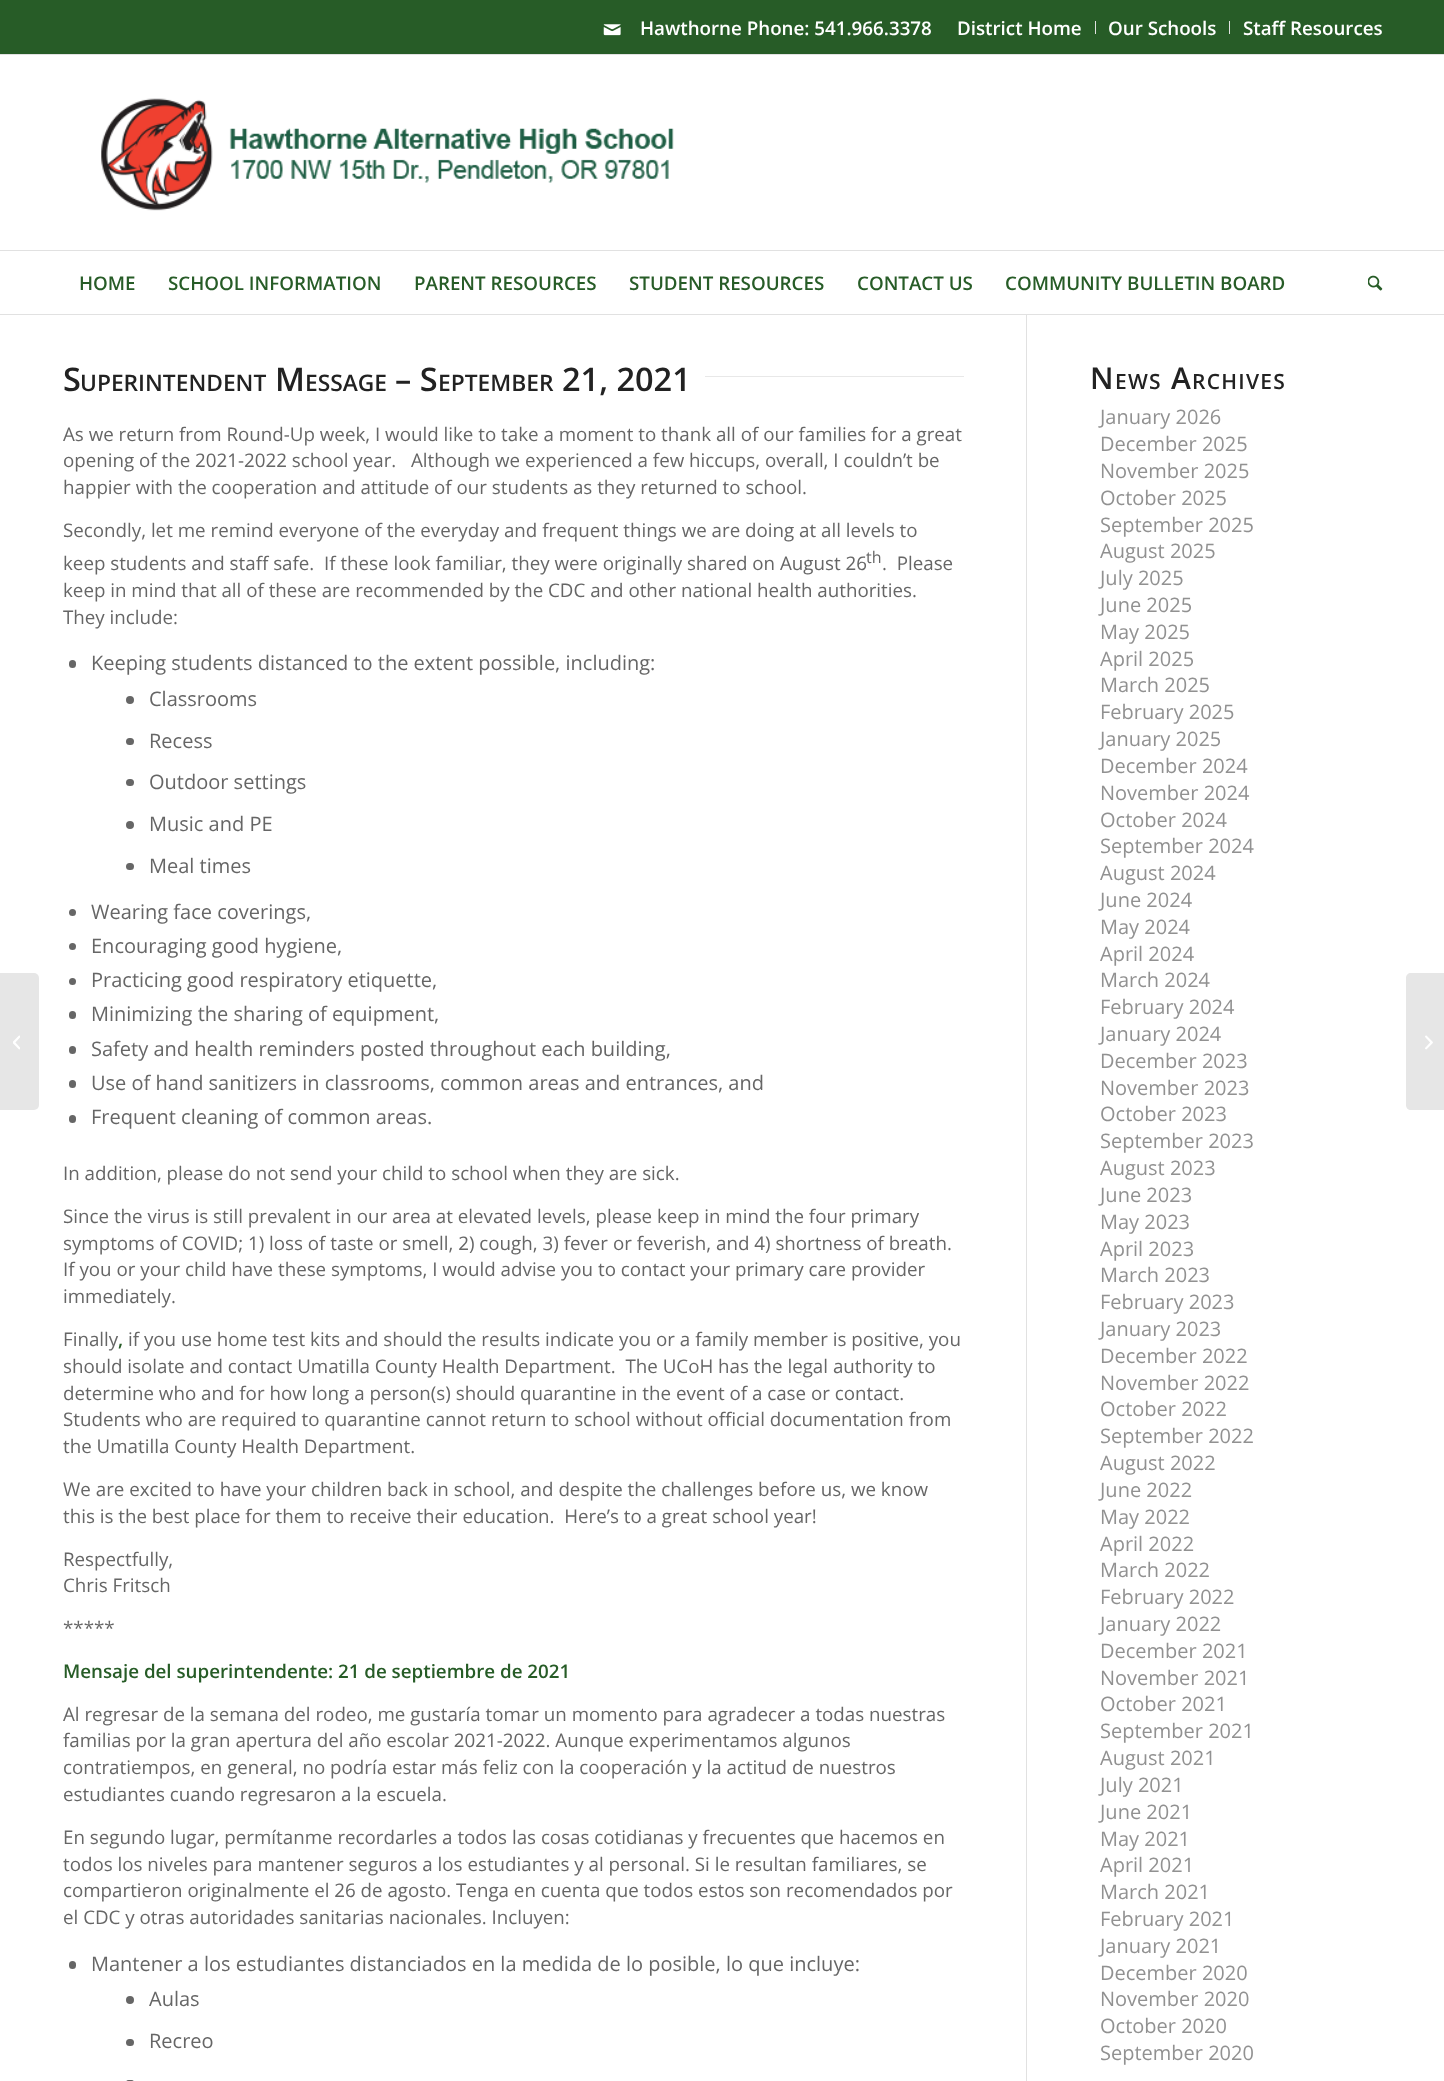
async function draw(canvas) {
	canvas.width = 1444;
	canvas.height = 2081;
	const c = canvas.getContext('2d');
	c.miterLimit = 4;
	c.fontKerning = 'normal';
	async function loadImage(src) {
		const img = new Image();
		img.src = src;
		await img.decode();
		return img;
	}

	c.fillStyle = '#fff';
	c.fillRect(0, 0, 1444, 2081);
	c.fillStyle = '#275c27';
	c.fillRect(0, 0, 1444, 54);
	c.fillStyle = '#e1e1e1';
	c.fillRect(0, 54, 1444, 1);
	c.drawImage(await loadImage('img1.png'), 603, 24, 18, 12);
	c.font = '600 18.75px Open Sans';
	c.fillStyle = '#fff';
	c.fillText('Hawthorne Phone: 541.966.3378', 640, 35);
	c.fillStyle = '#e1e1e1';
	c.fillRect(1095, 21, 1, 13);
	c.fillStyle = '#fff';
	c.fillText('District Home', 957, 35);
	c.fillStyle = '#e1e1e1';
	c.fillRect(1229, 21, 1, 13);
	c.fillStyle = '#fff';
	c.fillText('Our Schools', 1108, 35);
	c.fillText('Staff Resources', 1243, 35);
	c.fillStyle = '#e1e1e1';
	c.fillRect(0, 314, 1444, 1);
	c.drawImage(await loadImage('img2.png'), 101, 98, 573, 113);
	c.fillRect(0, 250, 1444, 1);
	c.fillStyle = '#275c27';
	for (const [text, x, y] of [
		['HOME', 79, 290],
		['SCHOOL INFORMATION', 168, 290],
		['PARENT RESOURCES', 414, 290],
		['STUDENT RESOURCES', 629, 290],
		['CONTACT US', 857, 290],
		['COMMUNITY BULLETIN BOARD', 1005, 290],
	]) {
		c.fillText(text, x, y);
	}
	c.drawImage(await loadImage('img3.png'), 1368, 275, 15, 16);
	c.fillStyle = '#e6e6e6';
	c.beginPath();
	c.roundRect(0, 973, 39, 137, [0, 5, 5, 0]);
	c.fill();
	c.drawImage(await loadImage('img4.png'), 13, 1035, 7, 15);
	c.fillStyle = '#e1e1e1';
	c.fillRect(1026, 315, 1, 1766);
	c.font = '600 32.5px Open Sans';
	c.fillStyle = '#222';
	c.fillText('S', 63, 391);
	c.font = '600 22.75px Open Sans';
	c.fillText('UPERINTENDENT', 80, 391);
	c.font = '600 32.5px Open Sans';
	c.fillText('M', 275, 391);
	c.font = '600 22.75px Open Sans';
	c.fillText('ESSAGE', 305, 391);
	c.font = '600 32.5px Open Sans';
	c.fillText('– S', 395, 391);
	c.font = '600 22.75px Open Sans';
	c.fillText('EPTEMBER', 438, 391);
	c.font = '600 32.5px Open Sans';
	c.fillText('21, 2021', 562, 391);
	c.fillStyle = '#e8e8e8';
	c.fillRect(705, 376, 259, 1);
	c.font = '18.75px Open Sans';
	c.fillStyle = '#666';
	for (const [text, x, y] of [
		['As we return from Round-Up week, I would like to take a moment to thank all of our families for a great', 63, 441],
		['opening of the 2021-2022 school year.   Although we experienced a few hiccups, overall, I couldn’t be', 63, 467],
		['happier with the cooperation and attitude of our students as they returned to school.', 63, 494],
		['Secondly, let me remind everyone of the everyday and frequent things we are doing at all levels to', 63, 537],
		['keep students and staff safe.  If these look familiar, they were originally shared on August 26', 63, 570],
	]) {
		c.fillText(text, x, y);
	}
	c.font = '16px Open Sans';
	c.fillText('th', 866, 563);
	c.font = '18.75px Open Sans';
	for (const [text, x, y] of [
		['.  Please', 882, 570],
		['keep in mind that all of these are recommended by the CDC and other national health authorities.', 63, 597],
		['They include:', 63, 624],
	]) {
		c.fillText(text, x, y);
	}
	c.beginPath();
	c.roundRect(69, 660, 7, 8, 3.5);
	c.fill();
	c.font = '20px Open Sans';
	c.fillText('Keeping students distanced to the extent possible, including:', 91, 670);
	c.beginPath();
	c.arc(130, 700, 4, 0, 2 * Math.PI);
	c.fill();
	c.fillText('Classrooms', 149, 706);
	c.beginPath();
	c.roundRect(126, 738, 8, 7, 3.5);
	c.fill();
	c.fillText('Recess', 149, 748);
	c.beginPath();
	c.roundRect(126, 779, 8, 7, 3.5);
	c.fill();
	c.fillText('Outdoor settings', 149, 789);
	c.beginPath();
	c.arc(130, 825, 4, 0, 2 * Math.PI);
	c.fill();
	c.fillText('Music and PE', 149, 831);
	c.beginPath();
	c.roundRect(126, 863, 8, 7, 3.5);
	c.fill();
	c.fillText('Meal times', 149, 873);
	c.beginPath();
	c.arc(72.5, 912.5, 3.5, 0, 2 * Math.PI);
	c.fill();
	c.fillText('Wearing face coverings,', 91, 919);
	c.beginPath();
	c.arc(72.5, 946.5, 3.5, 0, 2 * Math.PI);
	c.fill();
	c.fillText('Encouraging good hygiene,', 91, 953);
	c.beginPath();
	c.arc(72.5, 981.5, 3.5, 0, 2 * Math.PI);
	c.fill();
	c.fillText('Practicing good respiratory etiquette,', 91, 987);
	c.beginPath();
	c.roundRect(69, 1011, 7, 8, 3.5);
	c.fill();
	c.fillText('Minimizing the sharing of equipment,', 91, 1021);
	c.beginPath();
	c.roundRect(69, 1046, 7, 8, 3.5);
	c.fill();
	c.fillText('Safety and health reminders posted throughout each building,', 91, 1056);
	c.beginPath();
	c.roundRect(69, 1080, 7, 8, 3.5);
	c.fill();
	c.fillText('Use of hand sanitizers in classrooms, common areas and entrances, and', 91, 1090);
	c.beginPath();
	c.roundRect(69, 1115, 7, 8, 3.5);
	c.fill();
	c.fillText('Frequent cleaning of common areas.', 91, 1124);
	c.font = '18.75px Open Sans';
	for (const [text, x, y] of [
		['In addition, please do not send your child to school when they are sick.', 63, 1180],
		['Since the virus is still prevalent in our area at elevated levels, please keep in mind the four primary', 63, 1223],
		['symptoms of COVID; 1) loss of taste or smell, 2) cough, 3) fever or feverish, and 4) shortness of breath.', 63, 1250],
		['If you or your child have these symptoms, I would advise you to contact your primary care provider', 63, 1276],
		['immediately.', 63, 1303],
		['Finally', 63, 1346],
	]) {
		c.fillText(text, x, y);
	}
	c.font = '600 18.75px Open Sans';
	c.fillStyle = '#275c27';
	c.fillText(',', 118, 1346);
	c.font = '18.75px Open Sans';
	c.fillStyle = '#666';
	for (const [text, x, y] of [
		['if you use home test kits and should the results indicate you or a family member is positive, you', 128, 1346],
		['should isolate and contact Umatilla County Health Department.  The UCoH has the legal authority to', 63, 1373],
		['determine who and for how long a person(s) should quarantine in the event of a case or contact.', 63, 1400],
		['Students who are required to quarantine cannot return to school without official documentation from', 63, 1426],
		['the Umatilla County Health Department.', 63, 1453],
		['We are excited to have your children back in school, and despite the challenges before us, we know', 63, 1496],
		['this is the best place for them to receive their education.  Here’s to a great school year!', 63, 1523],
		['Respectfully,', 63, 1566],
		['Chris Fritsch', 63, 1592],
		['*****', 63, 1635],
	]) {
		c.fillText(text, x, y);
	}
	c.font = '600 18.75px Open Sans';
	c.fillStyle = '#275c27';
	c.fillText('Mensaje del superintendente: 21 de septiembre de 2021', 63, 1678);
	c.font = '18.75px Open Sans';
	c.fillStyle = '#666';
	for (const [text, x, y] of [
		['Al regresar de la semana del rodeo, me gustaría tomar un momento para agradecer a todas nuestras', 63, 1721],
		['familias por la gran apertura del año escolar 2021-2022. Aunque experimentamos algunos', 63, 1747],
		['contratiempos, en general, no podría estar más feliz con la cooperación y la actitud de nuestros', 63, 1774],
		['estudiantes cuando regresaron a la escuela.', 63, 1801],
		['En segundo lugar, permítanme recordarles a todos las cosas cotidianas y frecuentes que hacemos en', 63, 1844],
		['todos los niveles para mantener seguros a los estudiantes y al personal. Si le resultan familiares, se', 63, 1871],
		['compartieron originalmente el 26 de agosto. Tenga en cuenta que todos estos son recomendados por', 63, 1897],
		['el CDC y otras autoridades sanitarias nacionales. Incluyen:', 63, 1924],
	]) {
		c.fillText(text, x, y);
	}
	c.beginPath();
	c.roundRect(69, 1961, 7, 8, 3.5);
	c.fill();
	c.font = '20px Open Sans';
	c.fillText('Mantener a los estudiantes distanciados en la medida de lo posible, lo que incluye:', 91, 1971);
	c.beginPath();
	c.arc(130, 2000, 4, 0, 2 * Math.PI);
	c.fill();
	c.fillText('Aulas', 149, 2006);
	c.beginPath();
	c.roundRect(126, 2039, 8, 7, 3.5);
	c.fill();
	c.fillText('Recreo', 149, 2048);
	c.beginPath();
	c.roundRect(126, 2080, 8, 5, 4);
	c.fill();
	c.letterSpacing = '1.25px';
	c.font = '600 30px Open Sans';
	c.fillStyle = '#222';
	c.fillText('N', 1090, 389);
	c.font = '600 21px Open Sans';
	c.fillText('EWS', 1115, 389);
	c.font = '600 30px Open Sans';
	c.fillText('A', 1171, 389);
	c.font = '600 21px Open Sans';
	c.fillText('RCHIVES', 1192, 389);
	c.letterSpacing = '0px';
	c.font = '20px Open Sans';
	c.fillStyle = '#919191';
	for (const [text, x, y] of [
		['January 2026', 1100, 424],
		['December 2025', 1100, 451],
		['November 2025', 1100, 478],
		['October 2025', 1100, 505],
		['September 2025', 1100, 532],
		['August 2025', 1100, 558],
		['July 2025', 1100, 585],
		['June 2025', 1100, 612],
		['May 2025', 1100, 639],
		['April 2025', 1100, 666],
		['March 2025', 1100, 692],
		['February 2025', 1100, 719],
		['January 2025', 1100, 746],
		['December 2024', 1100, 773],
		['November 2024', 1100, 800],
		['October 2024', 1100, 827],
		['September 2024', 1100, 853],
		['August 2024', 1100, 880],
		['June 2024', 1100, 907],
		['May 2024', 1100, 934],
		['April 2024', 1100, 961],
		['March 2024', 1100, 987],
		['February 2024', 1100, 1014],
		['January 2024', 1100, 1041],
		['December 2023', 1100, 1068],
		['November 2023', 1100, 1095],
		['October 2023', 1100, 1121],
		['September 2023', 1100, 1148],
		['August 2023', 1100, 1175],
		['June 2023', 1100, 1202],
		['May 2023', 1100, 1229],
		['April 2023', 1100, 1256],
		['March 2023', 1100, 1282],
		['February 2023', 1100, 1309],
		['January 2023', 1100, 1336],
		['December 2022', 1100, 1363],
		['November 2022', 1100, 1390],
		['October 2022', 1100, 1416],
		['September 2022', 1100, 1443],
		['August 2022', 1100, 1470],
		['June 2022', 1100, 1497],
		['May 2022', 1100, 1524],
		['April 2022', 1100, 1551],
		['March 2022', 1100, 1577],
		['February 2022', 1100, 1604],
		['January 2022', 1100, 1631],
		['December 2021', 1100, 1658],
		['November 2021', 1100, 1685],
		['October 2021', 1100, 1711],
		['September 2021', 1100, 1738],
		['August 2021', 1100, 1765],
		['July 2021', 1100, 1792],
		['June 2021', 1100, 1819],
		['May 2021', 1100, 1846],
		['April 2021', 1100, 1872],
		['March 2021', 1100, 1899],
		['February 2021', 1100, 1926],
		['January 2021', 1100, 1953],
		['December 2020', 1100, 1980],
		['November 2020', 1100, 2006],
		['October 2020', 1100, 2033],
		['September 2020', 1100, 2060],
	]) {
		c.fillText(text, x, y);
	}
	c.fillStyle = '#e6e6e6';
	c.beginPath();
	c.moveTo(1411, 973);
	c.lineTo(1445, 973);
	c.lineTo(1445, 1110);
	c.lineTo(1411, 1110);
	c.bezierCurveTo(1408, 1110, 1406, 1108, 1406, 1105);
	c.lineTo(1406, 978);
	c.bezierCurveTo(1406, 975, 1408, 973, 1411, 973);
	c.closePath();
	c.fill();
	c.drawImage(await loadImage('img5.png'), 1425, 1035, 8, 15);
}

draw(document.querySelector('canvas'));
